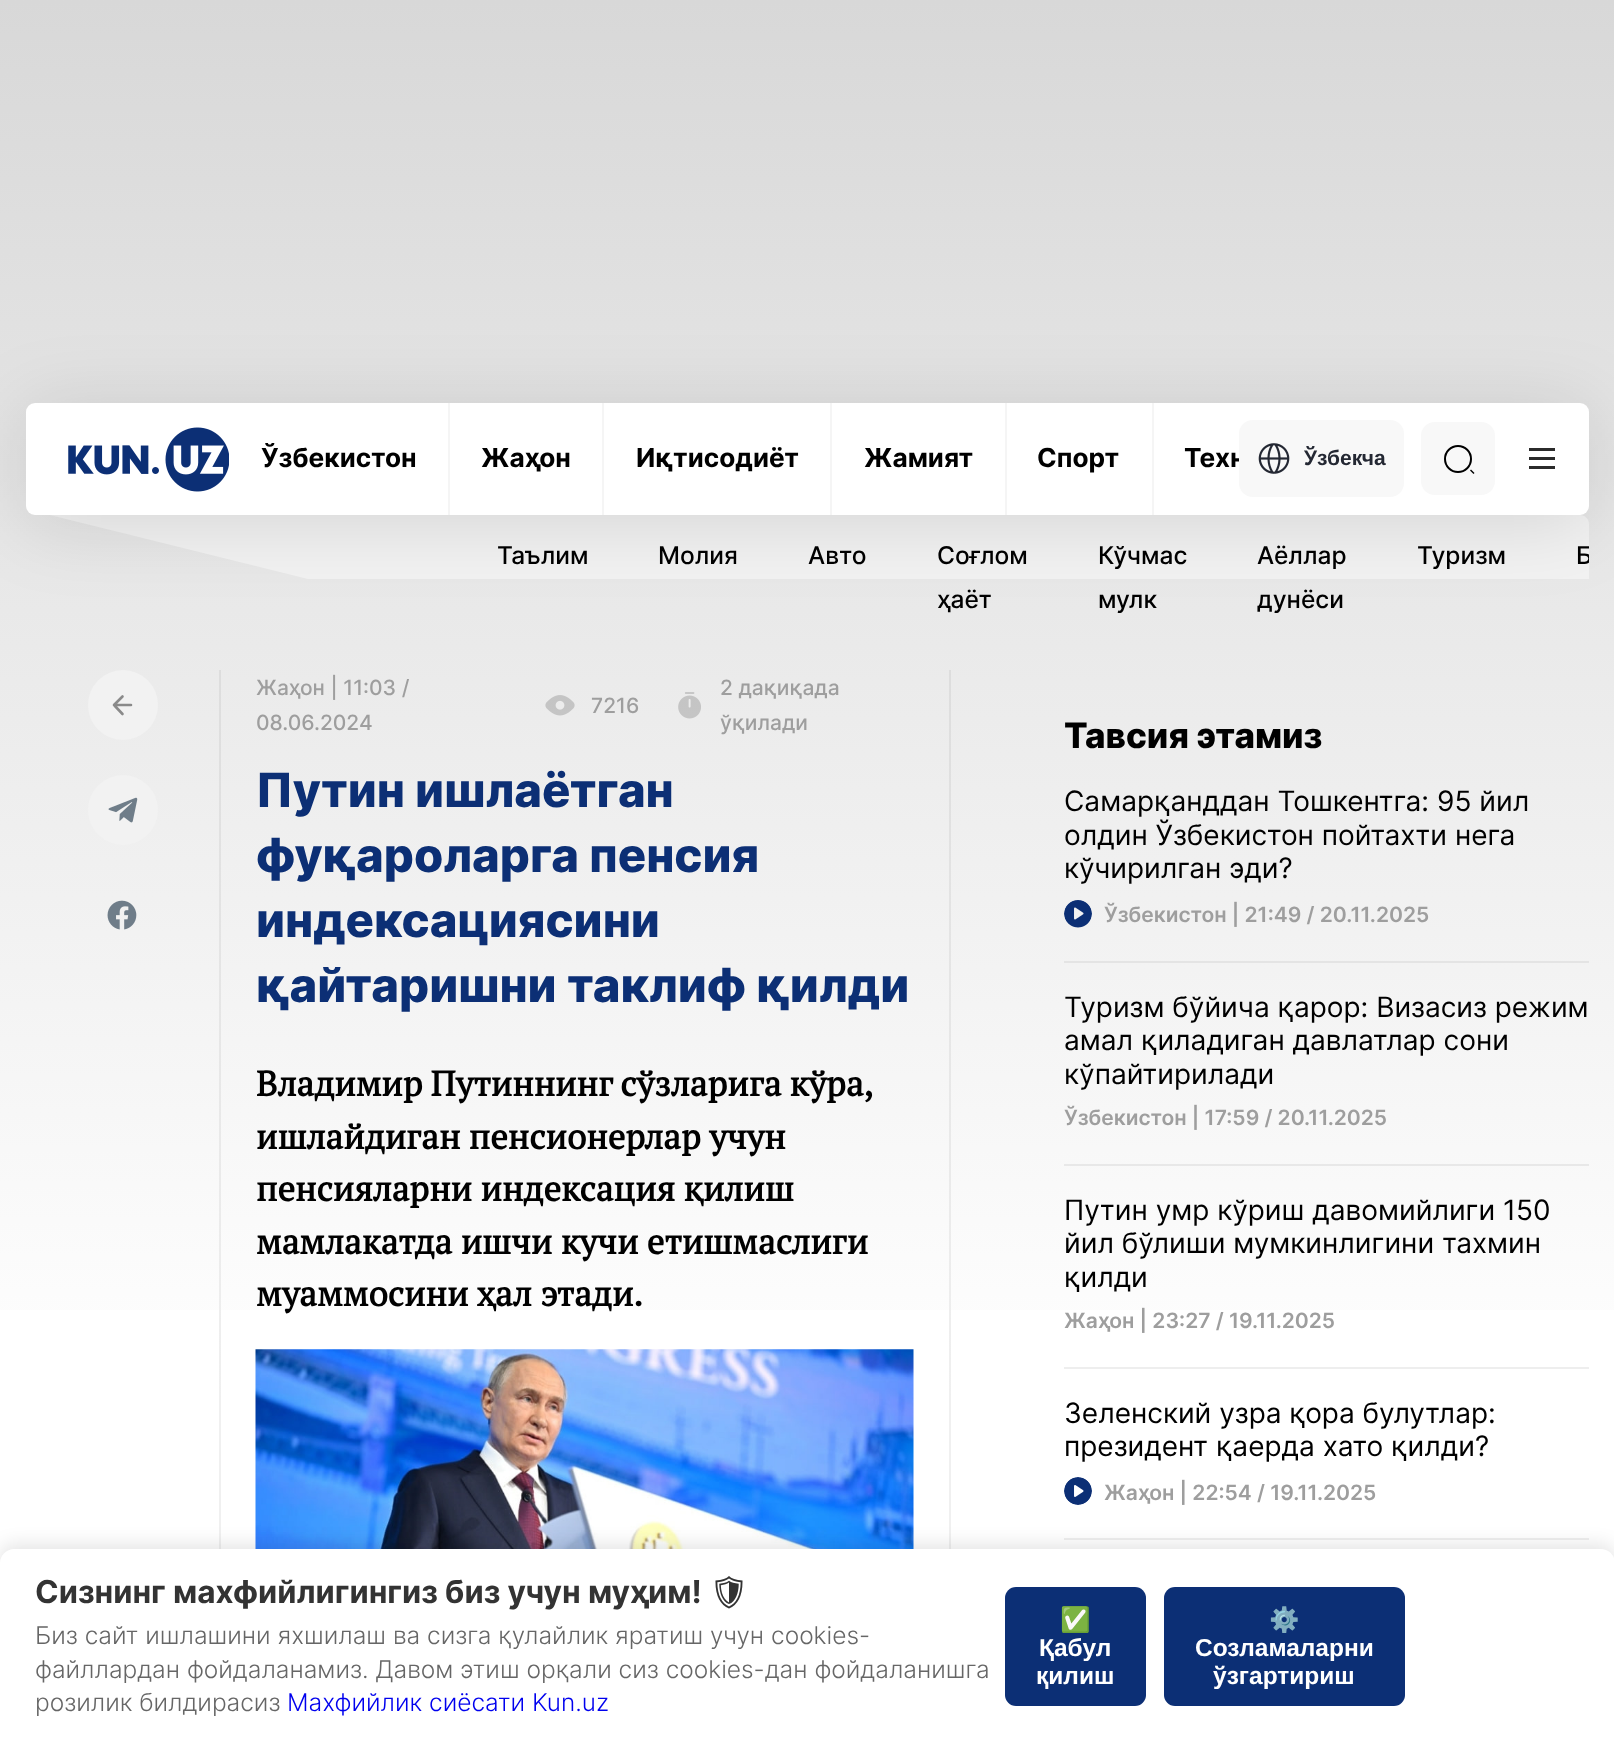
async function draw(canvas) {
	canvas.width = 1614;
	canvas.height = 1744;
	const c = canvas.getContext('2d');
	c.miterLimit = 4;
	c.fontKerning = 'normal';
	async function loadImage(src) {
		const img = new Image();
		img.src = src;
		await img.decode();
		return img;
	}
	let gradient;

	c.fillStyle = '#fff';
	c.fillRect(0, 0, 1614, 1744);
	c.fillStyle = '#f0f0f0';
	c.fillRect(219, 1400, 2, 149);
	c.fillRect(949, 1400, 2, 149);
	gradient = c.createLinearGradient(808, 0, 808, 1400);
	gradient.addColorStop(0, '#d8d8d8');
	gradient.addColorStop(1, '#fff');
	c.fillStyle = gradient;
	c.fillRect(0, 0, 1614, 1310);
	gradient = c.createLinearGradient(808, 0, 808, 1400);
	gradient.addColorStop(0, '#cbcbcb');
	gradient.addColorStop(1, '#f0f0f0');
	c.fillStyle = gradient;
	c.fillRect(219, 670, 2, 730);
	c.fillRect(949, 670, 2, 730);
	c.fillStyle = '#f2f2f2';
	c.beginPath();
	c.moveTo(1589, 579);
	c.lineTo(1589, 524);
	c.bezierCurveTo(1589, 519, 1585, 515, 1580, 515);
	c.lineTo(50, 515);
	c.lineTo(308, 579);
	c.closePath();
	c.fill();
	c.fillStyle = '#0000001f';
	c.filter = 'blur(38.5px)';
	c.beginPath();
	c.roundRect(26, 410, 1563, 112, 9);
	c.fill();
	c.filter = 'none';
	c.fillStyle = '#fff';
	c.beginPath();
	c.roundRect(26, 403, 1563, 112, 9);
	c.fill();
	c.drawImage(await loadImage('img1.png'), 68, 427, 161, 65);
	c.fillStyle = '#f5f5f5';
	c.fillRect(448, 403, 2, 112);
	c.save();
	c.beginPath();
	c.rect(261, 443, 156, 31);
	c.clip();
	c.font = 'bold 26.25px Inter';
	c.fillStyle = '#000';
	c.fillText('Ўзбекистон', 261, 467);
	c.restore();
	c.fillRect(602, 403, 2, 112);
	c.font = 'bold 26.25px Inter';
	c.fillStyle = '#000';
	c.fillText('Жаҳон', 481, 467);
	c.fillStyle = '#f5f5f5';
	c.fillRect(830, 403, 2, 112);
	c.fillStyle = '#000';
	c.fillText('Иқтисодиёт', 636, 467);
	c.fillStyle = '#f5f5f5';
	c.fillRect(1005, 403, 2, 112);
	c.fillStyle = '#000';
	c.fillText('Жамият', 864, 467);
	c.fillStyle = '#f5f5f5';
	c.fillRect(1152, 403, 2, 112);
	c.fillStyle = '#000';
	c.fillText('Спорт', 1037, 467);
	c.fillText('Техн', 1184, 467);
	c.fillStyle = '#f8f8f8';
	c.beginPath();
	c.roundRect(1239, 420, 165, 77, 14);
	c.fill();
	c.drawImage(await loadImage('img2.png'), 1258, 443, 32, 31);
	c.font = 'bold 21px Liberation Sans';
	c.fillStyle = '#242833';
	c.fillText('Ўзбекча', 1304, 465);
	c.fillStyle = '#f8f8f8';
	c.beginPath();
	c.roundRect(1421, 422, 74, 73, 14);
	c.fill();
	c.beginPath();
	c.arc(1458, 459, 13, 0, 2 * Math.PI);
	c.strokeStyle = '#000';
	c.lineWidth = 2;
	c.stroke();
	c.fillStyle = '#000';
	c.beginPath();
	c.moveTo(1471, 469.5);
	c.lineTo(1474.5, 473);
	c.lineTo(1473.5, 474);
	c.lineTo(1470, 470.5);
	c.closePath();
	c.fill();
	for (const [x, y, w, h, color] of [
		[1529, 448, 26, 3, '#2b2b2b'],
		[1529, 457, 26, 3, '#2b2b2b'],
		[1529, 466, 26, 3, '#2b2b2b'],
	]) {
		c.fillStyle = color;
		c.fillRect(x, y, w, h);
	}
	c.font = '500 24.5px Inter';
	c.fillStyle = '#000';
	for (const [text, x, y] of [
		['Таълим', 497, 564],
		['Молия', 658, 564],
		['Авто', 808, 564],
		['Соғлом', 937, 564],
		['ҳаёт', 937, 608],
		['Кўчмас', 1098, 564],
		['мулк', 1098, 608],
		['Аёллар', 1257, 564],
		['дунёси', 1257, 608],
		['Туризм', 1417, 564],
	]) {
		c.fillText(text, x, y);
	}
	c.save();
	c.beginPath();
	c.roundRect(26, 515, 1563, 119, 9);
	c.clip();
	c.fillText('Б', 1576, 564);
	c.restore();
	c.fillStyle = '#f2f2f2';
	c.beginPath();
	c.arc(123, 705, 35, 0, 2 * Math.PI);
	c.fill();
	c.beginPath();
	c.moveTo(131, 705);
	c.lineTo(114, 705);
	c.moveTo(122.5, 714);
	c.lineTo(114, 705);
	c.lineTo(122.5, 696.5);
	c.strokeStyle = '#8a8a8a';
	c.lineWidth = 2.6;
	c.lineCap = 'round';
	c.lineJoin = 'round';
	c.stroke();
	c.beginPath();
	c.arc(123, 810, 35, 0, 2 * Math.PI);
	c.fill();
	c.drawImage(await loadImage('img3.png'), 108, 797, 30, 26);
	c.drawImage(await loadImage('img4.png'), 107, 900, 30, 30);
	c.font = '500 21px Inter';
	c.fillStyle = '#9e9e9e';
	c.fillText('Жаҳон | 11:03 /', 256, 695);
	c.fillText('08.06.2024', 256, 730);
	c.drawImage(await loadImage('img5.png'), 545, 695, 30, 21);
	c.fillText('7216', 591, 713);
	c.drawImage(await loadImage('img6.png'), 678, 692, 23, 27);
	c.fillText('2 дақиқада', 720, 695);
	c.fillText('ўқилади', 720, 730);
	c.font = '800 47.25px Inter';
	c.fillStyle = '#0c2f75';
	for (const [text, x, y] of [
		['Путин ишлаётган', 256, 807],
		['фуқароларга пенсия', 256, 872],
		['индексациясини', 256, 937],
		['қайтаришни таклиф қилди', 256, 1002],
	]) {
		c.fillText(text, x, y);
	}
	c.wordSpacing = '-0.5px';
	c.font = 'bold 35px PT Serif';
	c.fillStyle = '#000';
	c.fillText('Владимир Путиннинг сўзларига кўра,', 256, 1096);
	c.wordSpacing = '0px';
	for (const [text, x, y] of [
		['ишлайдиган пенсионерлар учун', 256, 1149],
		['пенсияларни индексация қилиш', 256, 1201],
		['мамлакатда ишчи кучи етишмаслиги', 256, 1254],
		['муаммосини ҳал этади.', 256, 1306],
	]) {
		c.fillText(text, x, y);
	}
	c.drawImage(await loadImage('img7.png'), 255, 1349, 659, 200);
	c.font = '800 35px Inter';
	c.fillText('Тавсия этамиз', 1064, 748);
	c.fillStyle = '#e4e4e4';
	c.fillRect(1064, 961, 525, 2);
	c.font = '28px Inter';
	c.fillStyle = '#000';
	for (const [text, x, y] of [
		['Самарқанддан Тошкентга: 95 йил', 1064, 811],
		['олдин Ўзбекистон пойтахти нега', 1064, 845],
		['кўчирилган эди?', 1064, 878],
	]) {
		c.fillText(text, x, y);
	}
	c.drawImage(await loadImage('img8.png'), 1064, 900, 28, 28);
	c.font = '600 21px Inter';
	c.fillStyle = '#9e9e9e';
	c.fillText('Ўзбекистон | 21:49 / 20.11.2025', 1104, 922);
	c.fillStyle = '#e8e8e8';
	c.fillRect(1064, 1164, 525, 2);
	c.font = '28px Inter';
	c.fillStyle = '#000';
	for (const [text, x, y] of [
		['Туризм бўйича қарор: Визасиз режим', 1064, 1017],
		['амал қиладиган давлатлар сони', 1064, 1050],
		['кўпайтирилади', 1064, 1084],
	]) {
		c.fillText(text, x, y);
	}
	c.font = '600 21px Inter';
	c.fillStyle = '#9e9e9e';
	c.fillText('Ўзбекистон | 17:59 / 20.11.2025', 1064, 1125);
	c.fillStyle = '#eee';
	c.fillRect(1064, 1367, 525, 2);
	c.font = '28px Inter';
	c.fillStyle = '#000';
	for (const [text, x, y] of [
		['Путин умр кўриш давомийлиги 150', 1064, 1220],
		['йил бўлиши мумкинлигини тахмин', 1064, 1253],
		['қилди', 1064, 1287],
	]) {
		c.fillText(text, x, y);
	}
	c.font = '600 21px Inter';
	c.fillStyle = '#9e9e9e';
	c.fillText('Жаҳон | 23:27 / 19.11.2025', 1064, 1328);
	c.fillStyle = '#efefef';
	c.fillRect(1064, 1538, 525, 2);
	c.font = '28px Inter';
	c.fillStyle = '#000';
	c.fillText('Зеленский узра қора булутлар:', 1064, 1423);
	c.fillText('президент қаерда хато қилди?', 1064, 1456);
	c.drawImage(await loadImage('img9.png'), 1064, 1477, 28, 28);
	c.font = '600 21px Inter';
	c.fillStyle = '#9e9e9e';
	c.fillText('Жаҳон | 22:54 / 19.11.2025', 1104, 1500);
	c.fillStyle = '#0000001a';
	c.filter = 'blur(9px)';
	c.beginPath();
	c.roundRect(0, 1544, 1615, 196, 14);
	c.fill();
	c.filter = 'none';
	c.fillStyle = '#fff';
	c.beginPath();
	c.moveTo(14, 1549);
	c.lineTo(1601, 1549);
	c.bezierCurveTo(1608.5, 1549, 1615, 1555.5, 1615, 1563);
	c.lineTo(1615, 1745);
	c.lineTo(0, 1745);
	c.lineTo(0, 1563);
	c.bezierCurveTo(0, 1555.5, 6.5, 1549, 14, 1549);
	c.closePath();
	c.fill();
	c.font = 'bold 31.5px Inter';
	c.fillStyle = '#333';
	c.fillText('Сизнинг махфийлигингиз биз учун муҳим!', 35, 1603);
	c.font = 'bold 31.5px Noto Emoji';
	c.fillText('🛡', 709, 1603);
	c.font = '300 24.5px Inter';
	c.fillStyle = '#666';
	for (const [text, x, y] of [
		['Биз сайт ишлашини яхшилаш ва сизга қулайлик яратиш учун cookies-', 35, 1644],
		['файллардан фойдаланамиз. Давом этиш орқали сиз cookies-дан фойдаланишга', 35, 1678],
		['розилик билдирасиз', 35, 1711],
	]) {
		c.fillText(text, x, y);
	}
	c.fillStyle = '#00e';
	c.fillText('Махфийлик сиёсати Kun.uz', 287, 1711);
	c.fillStyle = '#0c2f75';
	c.beginPath();
	c.roundRect(1005, 1587, 141, 119, 11);
	c.fill();
	c.font = 'bold 24.5px Noto Color Emoji';
	c.fillStyle = '#fff';
	c.fillText('✅', 1060, 1628);
	c.font = 'bold 24.5px Liberation Sans';
	c.fillText('Қабул', 1039, 1656);
	c.fillText('қилиш', 1036, 1684);
	c.fillStyle = '#0c2f75';
	c.beginPath();
	c.roundRect(1164, 1587, 241, 119, 11);
	c.fill();
	c.font = 'bold 24.5px Noto Color Emoji';
	c.fillStyle = '#fff';
	c.fillText('⚙️', 1269, 1628);
	c.font = 'bold 24.5px Liberation Sans';
	c.fillText('Созламаларни', 1195, 1656);
	c.fillText('ўзгартириш', 1213, 1684);
}

draw(document.querySelector('canvas'));
